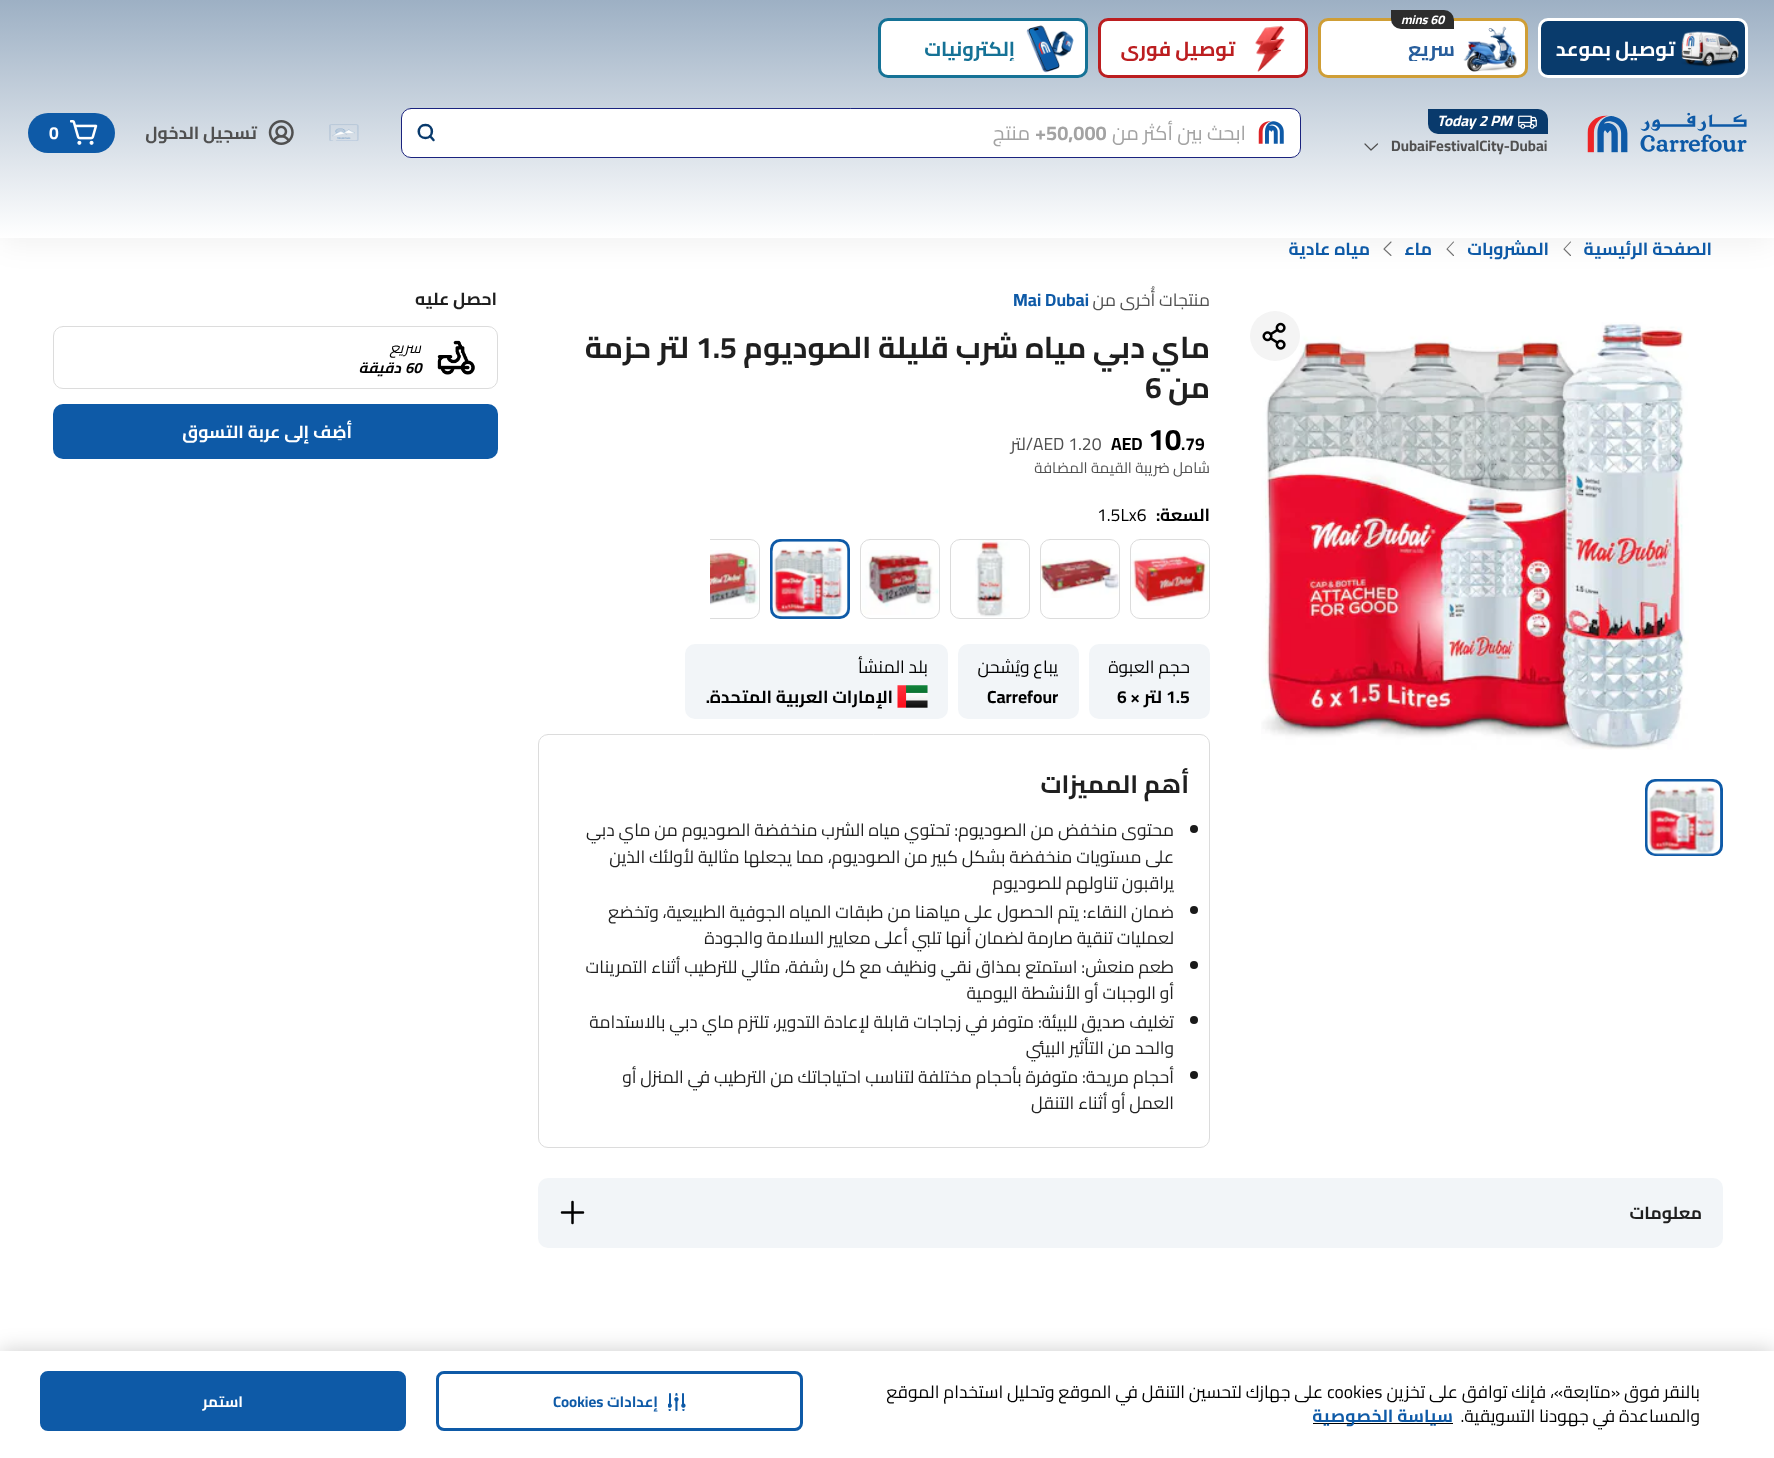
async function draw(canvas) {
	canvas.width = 1774;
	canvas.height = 1458;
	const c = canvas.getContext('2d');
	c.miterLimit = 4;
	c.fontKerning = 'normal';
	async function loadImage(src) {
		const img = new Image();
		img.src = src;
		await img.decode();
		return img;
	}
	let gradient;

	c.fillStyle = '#fff';
	c.fillRect(0, 0, 1774, 1458);
	c.beginPath();
	c.moveTo(1570.5, 255.5);
	c.lineTo(1564, 249);
	c.lineTo(1570.5, 242);
	c.strokeStyle = '#747474';
	c.lineWidth = 1.1;
	c.lineCap = 'round';
	c.lineJoin = 'round';
	c.stroke();
	c.beginPath();
	c.moveTo(1453.5, 255.5);
	c.lineTo(1447, 249);
	c.lineTo(1453.5, 242);
	c.stroke();
	c.beginPath();
	c.moveTo(1391, 255.5);
	c.lineTo(1384, 249);
	c.lineTo(1391, 242);
	c.stroke();
	c.fillStyle = '#0000000f';
	c.filter = 'blur(15px)';
	c.beginPath();
	c.rect(0, 5, 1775, 238);
	c.fill();
	c.filter = 'none';
	gradient = c.createLinearGradient(888, 0, 888, 238);
	gradient.addColorStop(0, '#9db0c4');
	gradient.addColorStop(1, '#fff');
	c.fillStyle = gradient;
	c.fillRect(0, 0, 1774, 238);
	c.fillStyle = '#093b6c';
	c.beginPath();
	c.roundRect(1539.5, 19.5, 207, 57, 8.5);
	c.fill();
	c.strokeStyle = '#fff';
	c.lineWidth = 3;
	c.lineJoin = 'miter';
	c.stroke();
	c.drawImage(await loadImage('img1.png'), 1681, 31, 58, 36);
	c.direction = 'rtl';
	c.font = 'bold 20px Cairo';
	c.fillStyle = '#fff';
	c.fillText('توصيل بموعد', 1675, 56);
	c.beginPath();
	c.roundRect(1319.5, 19.5, 207, 57, 8.5);
	c.fill();
	c.strokeStyle = '#cf9e36';
	c.stroke();
	c.fillStyle = '#2d2d2d';
	c.beginPath();
	c.roundRect(1391, 10, 63, 19, [0, 10, 0, 10]);
	c.fill();
	c.direction = 'ltr';
	c.font = 'italic bold 12.5px Cairo';
	c.fillStyle = '#fff';
	c.fillText('mins 60', 1401, 24);
	c.drawImage(await loadImage('img2.png'), 1463, 26, 54, 46);
	c.save();
	c.beginPath();
	c.rect(1408, 36, 52, 25);
	c.clip();
	c.direction = 'rtl';
	c.font = 'bold 20px Cairo';
	c.fillStyle = '#285e9c';
	c.fillText('سريع', 1455, 56);
	c.restore();
	c.beginPath();
	c.roundRect(1099.5, 19.5, 207, 57, 8.5);
	c.fill();
	c.strokeStyle = '#bc1e20';
	c.stroke();
	c.drawImage(await loadImage('img3.png'), 1255, 25, 30, 47);
	c.save();
	c.beginPath();
	c.rect(1120, 36, 120, 25);
	c.clip();
	c.direction = 'rtl';
	c.font = 'bold 20px Cairo';
	c.fillStyle = '#bc1e20';
	c.fillText('توصيل فوري', 1235, 56);
	c.restore();
	c.beginPath();
	c.roundRect(879.5, 19.5, 207, 57, 8.5);
	c.fill();
	c.strokeStyle = '#157296';
	c.stroke();
	c.drawImage(await loadImage('img4.png'), 1026, 25, 48, 48);
	c.save();
	c.beginPath();
	c.rect(924, 36, 96, 25);
	c.clip();
	c.direction = 'rtl';
	c.font = 'bold 20px Cairo';
	c.fillStyle = '#157296';
	c.fillText('إلكترونيات', 1015, 56);
	c.restore();
	c.drawImage(await loadImage('img5.png'), 1587, 112, 160, 41);
	c.fillStyle = '#093a6c';
	c.beginPath();
	c.roundRect(1428, 109, 120, 25, [0, 10, 0, 10]);
	c.fill();
	c.drawImage(await loadImage('img6.png'), 1518, 115, 19, 14);
	c.font = 'italic bold 15px Cairo';
	c.fillStyle = '#fff';
	c.fillText('Today 2 PM', 1437, 126);
	c.font = 'bold 15px Cairo';
	c.fillStyle = '#505050';
	c.fillText('DubaiFestivalCity-Dubai', 1391, 151);
	c.beginPath();
	c.moveTo(1377.5, 144);
	c.lineTo(1371, 150);
	c.lineTo(1365, 144);
	c.strokeStyle = '#505050';
	c.lineWidth = 1.2;
	c.lineJoin = 'round';
	c.stroke();
	c.fillStyle = '#fff';
	c.beginPath();
	c.roundRect(401.5, 108.5, 899, 49, 9.5);
	c.fill();
	c.strokeStyle = '#1a237e';
	c.lineWidth = 1;
	c.lineJoin = 'miter';
	c.stroke();
	c.drawImage(await loadImage('img7.png'), 1258, 121, 26, 23);
	c.direction = 'rtl';
	c.font = '20px Cairo';
	c.fillStyle = '#a3a3a3';
	c.fillText('ابحث بين أكثر من', 1246, 140);
	c.direction = 'ltr';
	c.font = 'bold 20px Cairo';
	c.fillText('+50,000', 1035, 140);
	c.direction = 'rtl';
	c.font = '20px Cairo';
	c.fillText('منتج', 1030, 140);
	c.beginPath();
	c.moveTo(425.5, 138);
	c.bezierCurveTo(434, 138, 434, 125, 425.5, 125);
	c.bezierCurveTo(416.5, 125, 416.5, 138, 425.5, 138);
	c.closePath();
	c.moveTo(430, 136);
	c.lineTo(433.5, 140);
	c.strokeStyle = '#093a6c';
	c.lineWidth = 2.5;
	c.lineJoin = 'round';
	c.stroke();
	c.drawImage(await loadImage('img8.png'), 329, 124, 30, 17);
	c.drawImage(await loadImage('img9.png'), 268, 120, 26, 25);
	c.font = 'bold 17.5px Cairo';
	c.fillStyle = '#505050';
	c.fillText('تسجيل الدخول', 257, 139);
	c.fillStyle = '#0e5aa7';
	c.beginPath();
	c.roundRect(28, 113, 87, 40, 20);
	c.fill();
	c.drawImage(await loadImage('img10.png'), 70, 120, 28, 25);
	c.direction = 'ltr';
	c.fillStyle = '#fff';
	c.fillText('0', 49, 139);
	c.direction = 'rtl';
	c.fillStyle = '#0e5aa7';
	for (const [text, x, y] of [
		['الصفحة الرئيسية', 1712, 255],
		['المشروبات', 1549, 255],
		['ماء', 1432, 255],
		['مياه عادية', 1370, 255],
	]) {
		c.fillText(text, x, y);
	}
	c.drawImage(await loadImage('img12.png'), 1261, 322, 428, 428);
	c.fillStyle = '#f4f4f4';
	c.beginPath();
	c.arc(1275, 336, 25, 0, 2 * Math.PI);
	c.fill();
	c.drawImage(await loadImage('img11.png'), 1262, 322, 24, 28);
	c.beginPath();
	c.roundRect(1646.5, 780.5, 75, 74, 8.5);
	c.strokeStyle = '#0e5aa7';
	c.lineWidth = 3;
	c.lineJoin = 'miter';
	c.stroke();
	c.drawImage(await loadImage('img13.png'), 1647, 781, 74, 74);
	c.font = '17.5px Cairo';
	c.fillStyle = '#505050';
	c.fillText('منتجات أُخرى من', 1210, 306);
	c.direction = 'ltr';
	c.font = 'bold 17.5px Cairo';
	c.fillStyle = '#0e5aa7';
	c.fillText('Mai Dubai', 1013, 306);
	c.direction = 'rtl';
	c.font = 'bold 30px Cairo';
	c.fillStyle = '#1f1f1f';
	c.fillText('ماي دبي مياه شرب', 1210, 358);
	c.fillText('قليلة الصوديوم', 949, 358);
	c.direction = 'ltr';
	c.fillText('1.5', 696, 358);
	c.direction = 'rtl';
	c.fillText('لتر حزمة', 689, 358);
	c.fillText('من', 1210, 398);
	c.direction = 'ltr';
	c.fillText('6', 1145, 398);
	c.font = 'bold 17.5px Cairo';
	c.fillStyle = '#000';
	c.fillText('.79', 1181, 450);
	c.font = 'bold 30px Cairo';
	c.fillText('10', 1148, 450);
	c.font = 'bold 17.5px Cairo';
	c.fillText('AED', 1111, 450);
	c.font = '17.5px Cairo';
	c.fillStyle = '#505050';
	c.fillText('AED 1.20', 1033, 450);
	c.direction = 'rtl';
	c.fillText('/لتر', 1033, 450);
	c.font = '15px Cairo';
	c.fillText('شامل ضريبة القيمة المضافة', 1210, 473);
	c.font = 'bold 17.5px Cairo';
	c.fillStyle = '#000';
	c.fillText('السعة', 1210, 521);
	c.direction = 'ltr';
	c.fillText(':', 1156, 521);
	c.font = '17.5px Cairo';
	c.fillText('1.5Lx6', 1097, 521);
	c.beginPath();
	c.roundRect(1130.5, 539.5, 79, 79, 9.5);
	c.strokeStyle = '#dcdcdc';
	c.lineWidth = 1;
	c.stroke();
	c.drawImage(await loadImage('img14.png'), 1131, 553, 78, 53);
	c.beginPath();
	c.roundRect(1040.5, 539.5, 79, 79, 9.5);
	c.stroke();
	c.drawImage(await loadImage('img15.png'), 1041, 558, 78, 40);
	c.beginPath();
	c.roundRect(950.5, 539.5, 79, 79, 9.5);
	c.stroke();
	c.drawImage(await loadImage('img16.png'), 975, 540, 35, 77);
	c.beginPath();
	c.roundRect(860.5, 539.5, 79, 79, 9.5);
	c.stroke();
	c.drawImage(await loadImage('img17.png'), 862, 550, 77, 65);
	c.fillStyle = '#f3f7fb';
	c.beginPath();
	c.roundRect(771.5, 540.5, 77, 77, 8.5);
	c.fill();
	c.strokeStyle = '#0e5aa7';
	c.lineWidth = 3;
	c.stroke();
	c.drawImage(await loadImage('img18.png'), 772, 541, 76, 76);
	c.save();
	c.beginPath();
	c.rect(710, 539, 500, 80);
	c.clip();
	c.beginPath();
	c.roundRect(680.5, 539.5, 79, 79, 9.5);
	c.strokeStyle = '#dcdcdc';
	c.lineWidth = 1;
	c.stroke();
	c.restore();
	c.drawImage(await loadImage('img19.png'), 710, 550, 49, 55);
	c.fillStyle = '#f2f5f8';
	c.beginPath();
	c.roundRect(1089, 644, 121, 75, 10);
	c.fill();
	c.direction = 'rtl';
	c.fillStyle = '#000';
	c.fillText('حجم العبوة', 1190, 673);
	c.direction = 'ltr';
	c.font = 'bold 17.5px Cairo';
	c.fillText('1.5', 1166, 703);
	c.direction = 'rtl';
	c.fillText('لتر ×', 1162, 703);
	c.direction = 'ltr';
	c.fillText('6', 1117, 703);
	c.fillStyle = '#f2f5f8';
	c.beginPath();
	c.roundRect(958, 644, 121, 75, 10);
	c.fill();
	c.direction = 'rtl';
	c.font = '17.5px Cairo';
	c.fillStyle = '#000';
	c.fillText('يباع ويُشحن', 1058, 673);
	c.direction = 'ltr';
	c.font = 'bold 17.5px Cairo';
	c.fillText('Carrefour', 987, 703);
	c.fillStyle = '#f2f5f8';
	c.beginPath();
	c.roundRect(685, 644, 263, 75, 10);
	c.fill();
	c.direction = 'rtl';
	c.font = '17.5px Cairo';
	c.fillStyle = '#000';
	c.fillText('بلد المنشأ', 928, 673);
	c.drawImage(await loadImage('img20.png'), 897, 685, 31, 23);
	c.font = 'bold 17.5px Cairo';
	c.fillText('الإمارات العربية المتحدة.', 893, 703);
	c.beginPath();
	c.roundRect(538.5, 734.5, 671, 413, 9.5);
	c.strokeStyle = '#dcdcdc';
	c.lineWidth = 1;
	c.stroke();
	c.font = 'bold 25px Cairo';
	c.fillStyle = '#1f1f1f';
	c.fillText('أهم المميزات', 1189, 793);
	c.fillStyle = '#1a1a1a';
	c.beginPath();
	c.arc(1194, 829, 4, 0, 2 * Math.PI);
	c.fill();
	c.font = '17.5px Cairo';
	c.fillStyle = '#1f1f1f';
	for (const [text, x, y] of [
		['محتوى منخفض من الصوديوم: تحتوي مياه الشرب منخفضة الصوديوم من ماي دبي', 1174, 836],
		['على مستويات منخفضة بشكل كبير من الصوديوم، مما يجعلها مثالية لأولئك الذين', 1174, 863],
		['يراقبون تناولهم للصوديوم', 1174, 889],
	]) {
		c.fillText(text, x, y);
	}
	c.fillStyle = '#1a1a1a';
	c.beginPath();
	c.arc(1194, 910, 4, 0, 2 * Math.PI);
	c.fill();
	c.fillStyle = '#1f1f1f';
	c.fillText('ضمان النقاء: يتم الحصول على مياهنا من طبقات المياه الجوفية الطبيعية، وتخضع', 1174, 918);
	c.fillText('لعمليات تنقية صارمة لضمان أنها تلبي أعلى معايير السلامة والجودة', 1174, 944);
	c.fillStyle = '#1a1a1a';
	c.beginPath();
	c.arc(1194, 965, 4, 0, 2 * Math.PI);
	c.fill();
	c.fillStyle = '#1f1f1f';
	c.fillText('طعم منعش: استمتع بمذاق نقي ونظيف مع كل رشفة، مثالي للترطيب أثناء التمرينات', 1174, 973);
	c.fillText('أو الوجبات أو الأنشطة اليومية', 1174, 999);
	c.fillStyle = '#1a1a1a';
	c.beginPath();
	c.arc(1194, 1020, 4, 0, 2 * Math.PI);
	c.fill();
	c.fillStyle = '#1f1f1f';
	c.fillText('تغليف صديق للبيئة: متوفر في زجاجات قابلة لإعادة التدوير، تلتزم ماي دبي بالاستدامة', 1174, 1028);
	c.fillText('والحد من التأثير البيئي', 1174, 1054);
	c.fillStyle = '#1a1a1a';
	c.beginPath();
	c.arc(1194, 1075, 4, 0, 2 * Math.PI);
	c.fill();
	c.fillStyle = '#1f1f1f';
	c.fillText('أحجام مريحة: متوفرة بأحجام مختلفة لتناسب احتياجاتك من الترطيب في المنزل أو', 1174, 1083);
	c.fillText('العمل أو أثناء التنقل', 1174, 1109);
	c.font = 'bold 17.5px Cairo';
	c.fillText('احصل عليه', 497, 305);
	c.beginPath();
	c.roundRect(53.5, 326.5, 444, 62, 9.5);
	c.stroke();
	c.drawImage(await loadImage('img21.png'), 437, 340, 38, 35);
	c.font = 'italic 15px Cairo';
	c.fillStyle = '#000';
	c.fillText('سريع', 421, 353);
	c.direction = 'ltr';
	c.font = 'italic bold 15px Cairo';
	c.fillText('60', 405, 373);
	c.direction = 'rtl';
	c.fillText('دقيقة', 401, 373);
	c.fillStyle = '#0e5aa7';
	c.beginPath();
	c.roundRect(53, 404, 445, 55, 10);
	c.fill();
	c.font = 'bold 17.5px Cairo';
	c.fillStyle = '#fff';
	c.fillText('أضِف إلى عربة التسوق', 352, 438);
	c.fillStyle = '#f2f5f8';
	c.beginPath();
	c.roundRect(538, 1178, 1185, 70, 10);
	c.fill();
	c.fillStyle = '#1f1f1f';
	c.fillText('معلومات', 1702, 1219);
	c.beginPath();
	c.moveTo(562, 1212.5);
	c.lineTo(583, 1212.5);
	c.moveTo(572.5, 1202);
	c.lineTo(572.5, 1223);
	c.strokeStyle = '#000';
	c.lineWidth = 2.5;
	c.lineJoin = 'round';
	c.stroke();
	c.fillStyle = '#00000033';
	c.filter = 'blur(11px)';
	c.beginPath();
	c.rect(0, 1351, 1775, 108);
	c.fill();
	c.filter = 'none';
	c.fillStyle = '#fff';
	c.fillRect(0, 1351, 1774, 107);
	c.font = '17.5px Cairo';
	c.fillStyle = '#000';
	c.fillText('بالنقر فوق «متابعة»، فإنك توافق على تخزين', 1700, 1398);
	c.direction = 'ltr';
	c.fillText('cookies', 1327, 1398);
	c.direction = 'rtl';
	c.fillText('على جهازك لتحسين التنقل في الموقع وتحليل استخدام الموقع', 1323, 1398);
	c.fillText('والمساعدة في جهودنا التسويقية.', 1700, 1422);
	c.fillRect(1313, 1423, 140, 1);
	c.font = 'bold 17.5px Cairo';
	c.fillStyle = '#0e5aa7';
	c.fillText('سياسة الخصوصية', 1453, 1422);
	c.beginPath();
	c.roundRect(437.5, 1372.5, 364, 57, 6.5);
	c.strokeStyle = '#0e5aa7';
	c.lineWidth = 3;
	c.lineJoin = 'miter';
	c.stroke();
	c.drawImage(await loadImage('img22.png'), 668, 1393, 18, 18);
	c.font = 'bold 15px Cairo';
	c.fillText('إعدادات', 658, 1407);
	c.direction = 'ltr';
	c.fillText('Cookies', 553, 1407);
	c.beginPath();
	c.roundRect(41.5, 1372.5, 363, 57, 6.5);
	c.fill();
	c.stroke();
	c.direction = 'rtl';
	c.fillStyle = '#fff';
	c.fillText('استمر', 243, 1407);
}

draw(document.querySelector('canvas'));
